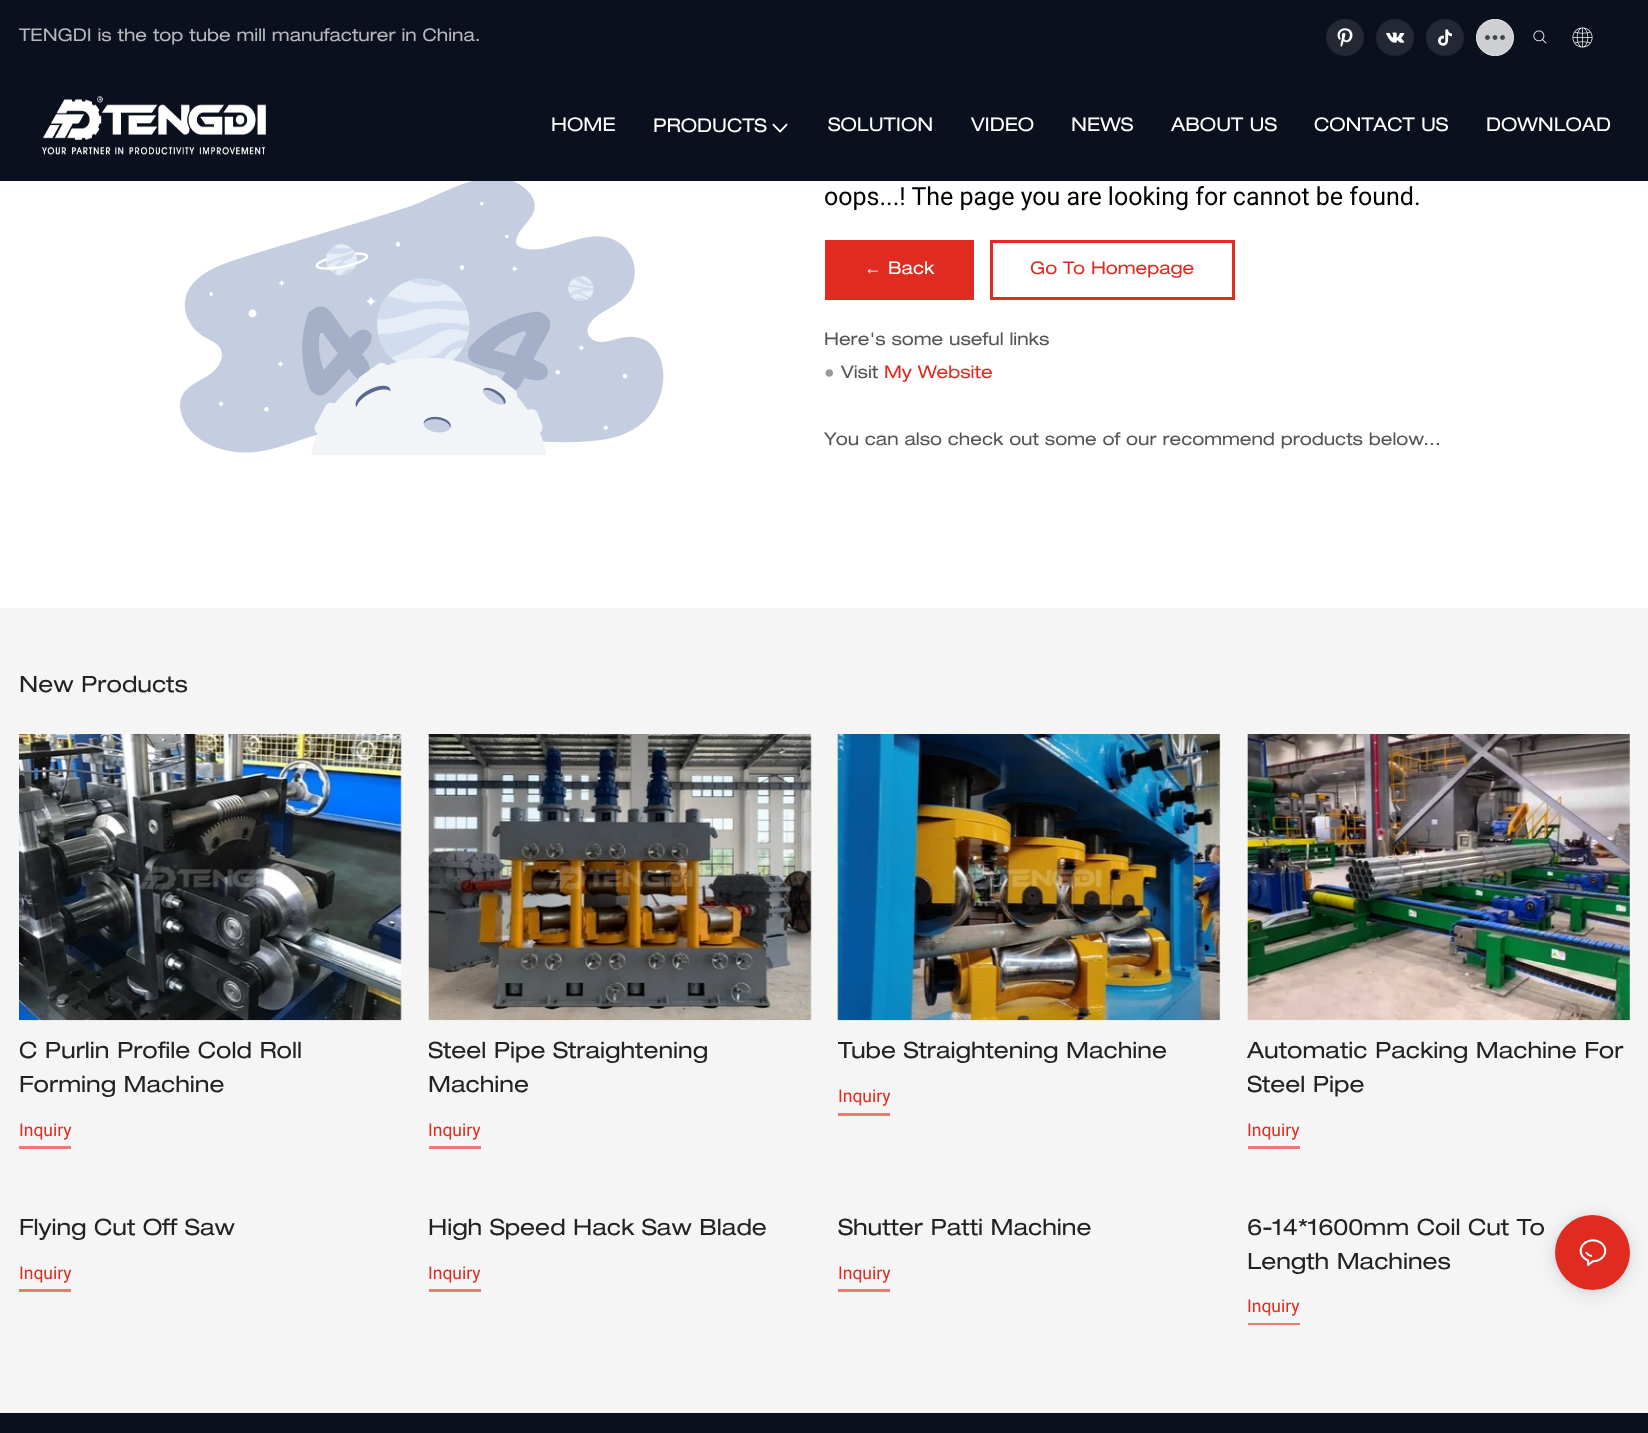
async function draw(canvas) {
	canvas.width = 1648;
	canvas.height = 1433;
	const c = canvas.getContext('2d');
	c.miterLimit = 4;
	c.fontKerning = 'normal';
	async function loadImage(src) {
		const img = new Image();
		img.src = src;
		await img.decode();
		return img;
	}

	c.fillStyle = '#fff';
	c.fillRect(0, 0, 1648, 1433);
	c.fillStyle = '#0a101d';
	c.fillRect(0, 0, 1648, 181);
	c.font = '17.5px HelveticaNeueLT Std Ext';
	c.fillStyle = '#b6b7bb';
	c.fillText('TENGDI is the top tube mill manufacturer in China.', 19, 41);
	c.fillStyle = '#232834';
	c.beginPath();
	c.roundRect(1326, 19, 38, 37, 18.5);
	c.fill();
	c.drawImage(await loadImage('img1.png'), 1337, 28, 16, 19);
	c.beginPath();
	c.roundRect(1376, 19, 38, 37, 18.5);
	c.fill();
	c.drawImage(await loadImage('img2.png'), 1386, 32, 19, 11);
	c.beginPath();
	c.roundRect(1426, 19, 38, 37, 18.5);
	c.fill();
	c.drawImage(await loadImage('img3.png'), 1438, 29, 14, 17);
	c.fillStyle = '#cecfd2';
	c.beginPath();
	c.roundRect(1476.5, 19.5, 37, 36, 18);
	c.fill();
	c.strokeStyle = '#ebebeb';
	c.stroke();
	c.drawImage(await loadImage('img4.png'), 1485, 35, 20, 5);
	c.drawImage(await loadImage('img5.png'), 1533, 30, 14, 14);
	c.drawImage(await loadImage('img6.png'), 1572, 27, 21, 21);
	c.drawImage(await loadImage('img7.png'), 42, 96, 224, 59);
	c.font = '18.75px HelveticaNeueLT Std Ext';
	c.fillStyle = '#fff';
	c.fillText('HOME', 551, 131);
	c.fillText('PRODUCTS', 653, 132);
	c.drawImage(await loadImage('img8.png'), 772, 123, 16, 10);
	for (const [text, x, y] of [
		['SOLUTION', 828, 131],
		['VIDEO', 971, 131],
		['NEWS', 1071, 131],
		['ABOUT US', 1171, 131],
		['CONTACT US', 1314, 131],
		['DOWNLOAD', 1486, 131],
	]) {
		c.fillText(text, x, y);
	}
	c.drawImage(await loadImage('img9.png'), 180, 181, 484, 274);
	c.font = '25px Roboto';
	c.fillStyle = '#000';
	c.fillText('oops...! The page you are looking for cannot be found.', 824, 205);
	c.fillStyle = '#df2b20';
	c.fillRect(825, 240, 149, 60);
	c.font = '17.5px Liberation Serif';
	c.fillStyle = '#fff';
	c.fillText('←', 864, 274);
	c.font = '17.5px HelveticaNeueLT Std Ext';
	c.fillText('Back', 888, 274);
	c.strokeStyle = '#df2b20';
	c.lineWidth = 3;
	c.strokeRect(991.5, 241.5, 242, 57);
	c.fillStyle = '#df2b20';
	c.fillText('Go To Homepage', 1030, 274);
	c.fillStyle = '#555';
	c.fillText('Here\'s some useful links', 824, 345);
	c.font = '17.5px Liberation Serif';
	c.fillStyle = '#999';
	c.fillText('●', 824, 378);
	c.font = '17.5px HelveticaNeueLT Std Ext';
	c.fillStyle = '#555';
	c.fillText('Visit', 841, 378);
	c.fillStyle = '#df2b20';
	c.fillText('My Website', 884, 378);
	c.fillStyle = '#555';
	c.fillText('You can also check out some of our recommend products below...', 824, 445);
	c.fillStyle = '#f5f5f5';
	c.fillRect(0, 608, 1648, 805);
	c.font = '22.5px HelveticaNeueLT Std Ext';
	c.fillStyle = '#222';
	c.fillText('New Products', 19, 692);
	c.drawImage(await loadImage('img10.png'), 19, 734, 383, 287);
	c.fillText('C Purlin Profile Cold Roll', 19, 1058);
	c.fillText('Forming Machine', 19, 1092);
	c.font = '17.5px Roboto';
	c.fillStyle = '#df2b20';
	c.fillText('Inquiry', 19, 1136);
	c.fillStyle = '#e87c75';
	c.fillRect(19, 1146, 52, 3);
	c.drawImage(await loadImage('img11.png'), 428, 734, 384, 287);
	c.save();
	c.beginPath();
	c.rect(429, 1038, 382, 67);
	c.clip();
	c.font = '22.5px HelveticaNeueLT Std Ext';
	c.fillStyle = '#222';
	c.fillText('Steel Pipe Straightening', 428, 1058);
	c.restore();
	c.font = '22.5px HelveticaNeueLT Std Ext';
	c.fillStyle = '#222';
	c.fillText('Machine', 428, 1092);
	c.font = '17.5px Roboto';
	c.fillStyle = '#df2b20';
	c.fillText('Inquiry', 428, 1136);
	c.fillStyle = '#e87c75';
	c.fillRect(429, 1146, 52, 3);
	c.drawImage(await loadImage('img12.png'), 837, 734, 384, 287);
	c.font = '22.5px HelveticaNeueLT Std Ext';
	c.fillStyle = '#222';
	c.fillText('Tube Straightening Machine', 838, 1058);
	c.font = '17.5px Roboto';
	c.fillStyle = '#df2b20';
	c.fillText('Inquiry', 838, 1102);
	c.fillStyle = '#e87c75';
	c.fillRect(838, 1113, 52, 3);
	c.drawImage(await loadImage('img13.png'), 1247, 734, 383, 287);
	c.font = '22.5px HelveticaNeueLT Std Ext';
	c.fillStyle = '#222';
	c.fillText('Automatic Packing Machine For', 1247, 1058);
	c.save();
	c.beginPath();
	c.rect(1248, 1038, 382, 67);
	c.clip();
	c.fillText('Steel Pipe', 1247, 1092);
	c.restore();
	c.font = '17.5px Roboto';
	c.fillStyle = '#df2b20';
	c.fillText('Inquiry', 1247, 1136);
	c.fillStyle = '#e87c75';
	c.fillRect(1248, 1146, 52, 3);
	c.font = '22.5px HelveticaNeueLT Std Ext';
	c.fillStyle = '#222';
	c.fillText('Flying Cut Off Saw', 19, 1235);
	c.font = '17.5px Roboto';
	c.fillStyle = '#df2b20';
	c.fillText('Inquiry', 19, 1279);
	c.fillStyle = '#e87c75';
	c.fillRect(19, 1289, 52, 3);
	c.font = '22.5px HelveticaNeueLT Std Ext';
	c.fillStyle = '#222';
	c.fillText('High Speed Hack Saw Blade', 428, 1235);
	c.font = '17.5px Roboto';
	c.fillStyle = '#df2b20';
	c.fillText('Inquiry', 428, 1279);
	c.fillStyle = '#e87c75';
	c.fillRect(429, 1289, 52, 3);
	c.font = '22.5px HelveticaNeueLT Std Ext';
	c.fillStyle = '#222';
	c.fillText('Shutter Patti Machine', 838, 1235);
	c.font = '17.5px Roboto';
	c.fillStyle = '#df2b20';
	c.fillText('Inquiry', 838, 1279);
	c.fillStyle = '#e87c75';
	c.fillRect(838, 1289, 52, 3);
	c.font = '22.5px HelveticaNeueLT Std Ext';
	c.fillStyle = '#222';
	c.fillText('6-14*1600mm Coil Cut To', 1247, 1235);
	c.fillText('Length Machines', 1247, 1269);
	c.font = '17.5px Roboto';
	c.fillStyle = '#df2b20';
	c.fillText('Inquiry', 1247, 1312);
	c.fillStyle = '#e87c75';
	c.fillRect(1248, 1323, 52, 2);
	c.fillStyle = '#0a101d';
	c.fillRect(0, 1413, 1648, 20);
	c.fillStyle = '#0000001f';
	c.filter = 'blur(10px)';
	c.beginPath();
	c.roundRect(1555, 1218, 75, 75, 37.5);
	c.fill();
	c.filter = 'none';
	c.fillStyle = '#0000000f';
	c.filter = 'blur(2.5px)';
	c.beginPath();
	c.roundRect(1555, 1216, 75, 75, 37.5);
	c.fill();
	c.filter = 'none';
	c.fillStyle = '#df2b20';
	c.beginPath();
	c.arc(1592.5, 1252.5, 37.5, 0, 2 * Math.PI);
	c.fill();
	c.drawImage(await loadImage('img14.png'), 1579, 1239, 28, 27);
}

draw(document.querySelector('canvas'));
